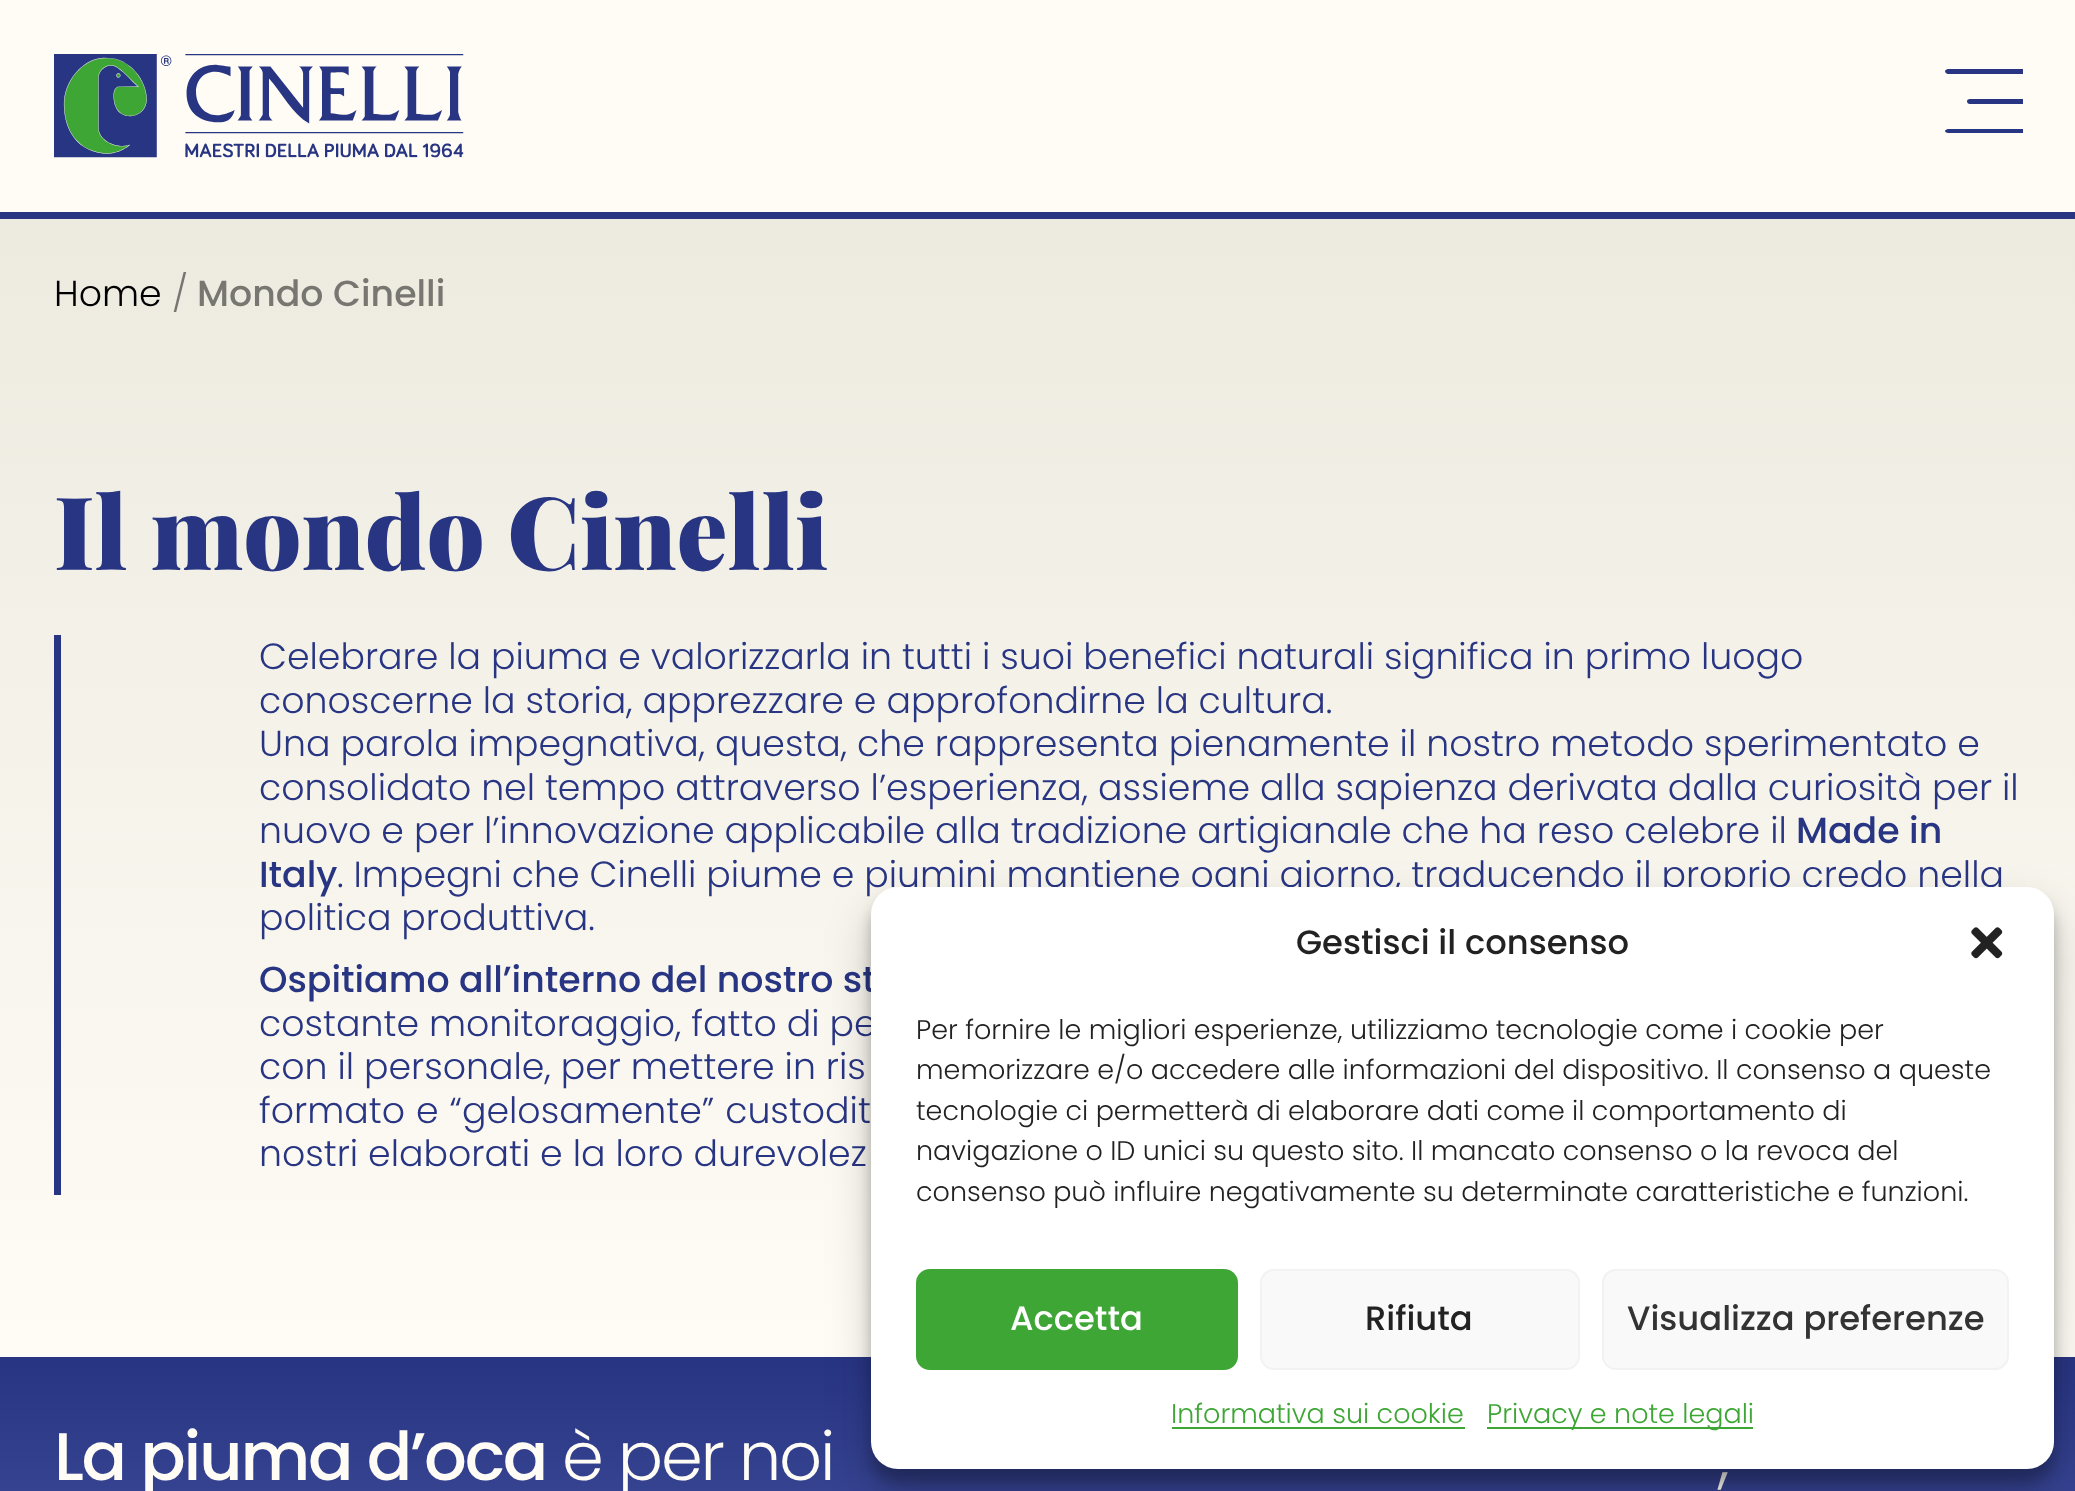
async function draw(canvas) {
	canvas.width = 2075;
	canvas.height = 1491;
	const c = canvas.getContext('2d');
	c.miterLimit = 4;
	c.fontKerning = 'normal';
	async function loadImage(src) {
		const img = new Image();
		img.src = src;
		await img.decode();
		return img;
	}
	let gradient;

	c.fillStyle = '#fff';
	c.fillRect(0, 0, 2075, 1491);
	c.fillStyle = '#fefcf5';
	c.fillRect(0, 0, 2075, 212);
	c.fillStyle = '#283583';
	c.fillRect(0, 212, 2075, 7);
	c.drawImage(await loadImage('img1.png'), 54, 54, 410, 104);
	c.beginPath();
	c.moveTo(1945, 71);
	c.bezierCurveTo(1945, 70, 1947, 69, 1948, 69);
	c.lineTo(2023, 69);
	c.lineTo(2023, 74);
	c.lineTo(1948, 74);
	c.bezierCurveTo(1947, 74, 1945, 73, 1945, 71);
	c.closePath();
	c.moveTo(1967, 101);
	c.bezierCurveTo(1967, 100, 1968, 99, 1970, 99);
	c.lineTo(2023, 99);
	c.lineTo(2023, 104);
	c.lineTo(1970, 104);
	c.bezierCurveTo(1968, 104, 1967, 103, 1967, 101);
	c.closePath();
	c.moveTo(1945, 131);
	c.bezierCurveTo(1945, 130, 1947, 129, 1948, 129);
	c.lineTo(2023, 129);
	c.lineTo(2023, 133);
	c.lineTo(1948, 133);
	c.bezierCurveTo(1947, 133, 1945, 132, 1945, 131);
	c.closePath();
	c.fill('evenodd');
	gradient = c.createLinearGradient(1038, 1357, 1038, 218);
	gradient.addColorStop(0, '#fefcf5');
	gradient.addColorStop(1, '#edeae0');
	c.fillStyle = gradient;
	c.fillRect(0, 219, 2075, 1138);
	c.font = '300 36.3px Poppins';
	c.fillStyle = '#000';
	c.fillText('Home', 54, 306);
	c.fillStyle = '#777671';
	c.fillText('/', 172, 306);
	c.font = '500 36.3px Poppins';
	c.fillText('Mondo Cinelli', 197, 306);
	c.font = '900 101.25px Playfair Display';
	c.fillStyle = '#283583';
	c.fillText('Il mondo Cinelli', 54, 570);
	c.fillRect(54, 635, 7, 560);
	c.font = '300 36.3px Poppins';
	for (const [text, x, y] of [
		['Celebrare la piuma e valorizzarla in tutti i suoi benefici naturali significa in primo luogo', 259, 669],
		['conoscerne la storia, apprezzare e approfondirne la cultura.', 259, 713],
		['Una parola impegnativa, questa, che rappresenta pienamente il nostro metodo sperimentato e', 259, 756],
		['consolidato nel tempo attraverso l’esperienza, assieme alla sapienza derivata dalla curiosità per il', 259, 800],
		['nuovo e per l’innovazione applicabile alla tradizione artigianale che ha reso celebre il', 259, 843],
	]) {
		c.fillText(text, x, y);
	}
	c.font = '500 36.3px Poppins';
	c.fillText('Made in', 1796, 843);
	c.fillText('Italy', 259, 887);
	c.font = '300 36.3px Poppins';
	c.fillText('. Impegni che Cinelli piume e piumini mantiene ogni giorno, traducendo il proprio credo nella', 337, 887);
	c.fillText('politica produttiva.', 259, 930);
	c.font = '500 36.3px Poppins';
	c.fillText('Ospitiamo all’interno del nostro st', 259, 992);
	c.font = '300 36.3px Poppins';
	c.fillText('costante monitoraggio, fatto di pe', 259, 1036);
	c.fillText('con il personale, per mettere in ris', 259, 1079);
	c.wordSpacing = '1px';
	c.fillText('formato e “gelosamente” custodit', 259, 1123);
	c.wordSpacing = '0px';
	c.fillText('nostri elaborati e la loro durevolez', 259, 1166);
	gradient = c.createLinearGradient(1038, 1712, 1038, 1364);
	gradient.addColorStop(0, '#4d5aa7');
	gradient.addColorStop(1, '#283583');
	c.fillStyle = gradient;
	c.fillRect(0, 1364, 2075, 127);
	c.fillStyle = '#283583';
	c.fillRect(0, 1357, 2075, 7);
	c.letterSpacing = '-2.25px';
	c.font = '500 67.25px Poppins';
	c.fillStyle = '#fefcf5';
	c.fillText('La piuma d’oca', 54, 1480);
	c.font = '300 67.25px Poppins';
	c.fillText('è per noi', 562, 1480);
	c.fillText(',', 1718, 1480);
	c.fillStyle = '#0000003b';
	c.filter = 'blur(7px)';
	c.beginPath();
	c.roundRect(871, 900, 1183, 583, 27);
	c.fill();
	c.filter = 'none';
	c.fillStyle = '#00000030';
	c.filter = 'blur(22.5px)';
	c.beginPath();
	c.roundRect(871, 909, 1183, 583, 27);
	c.fill();
	c.filter = 'none';
	c.fillStyle = '#fff';
	c.beginPath();
	c.roundRect(871, 887, 1183, 582, 27);
	c.fill();
	c.letterSpacing = '0px';
	c.font = '500 33.75px Poppins';
	c.fillStyle = '#222';
	c.fillText('Gestisci il consenso', 1296, 954);
	c.drawImage(await loadImage('img2.png'), 1971, 927, 32, 32);
	c.font = '300 27px Poppins';
	for (const [text, x, y] of [
		['Per fornire le migliori esperienze, utilizziamo tecnologie come i cookie per', 916, 1039],
		['memorizzare e/o accedere alle informazioni del dispositivo. Il consenso a queste', 916, 1079],
		['tecnologie ci permetterà di elaborare dati come il comportamento di', 916, 1120],
		['navigazione o ID unici su questo sito. Il mancato consenso o la revoca del', 916, 1160],
		['consenso può influire negativamente su determinate caratteristiche e funzioni.', 916, 1201],
	]) {
		c.fillText(text, x, y);
	}
	c.fillStyle = '#3ea635';
	c.beginPath();
	c.roundRect(917, 1270, 320, 99, 13);
	c.fill();
	c.strokeStyle = '#3ea635';
	c.lineWidth = 2;
	c.stroke();
	c.font = '500 33.75px Poppins';
	c.fillStyle = '#fff';
	c.fillText('Accetta', 1010, 1330);
	c.fillStyle = '#f9f9f9';
	c.beginPath();
	c.roundRect(1261, 1270, 318, 99, 13);
	c.fill();
	c.strokeStyle = '#f2f2f2';
	c.stroke();
	c.fillStyle = '#222';
	c.fillText('Rifiuta', 1365, 1330);
	c.fillStyle = '#f9f9f9';
	c.beginPath();
	c.roundRect(1603, 1270, 405, 99, 13);
	c.fill();
	c.stroke();
	c.fillStyle = '#333';
	c.fillText('Visualizza preferenze', 1627, 1330);
	c.font = '300 27px Poppins';
	c.fillStyle = '#3ea635';
	c.fillText('Informativa sui cookie', 1171, 1423);
	c.fillRect(1172, 1427, 293, 2);
	c.fillRect(1487, 1427, 266, 2);
	c.fillText('Privacy e note legali', 1487, 1423);
}

draw(document.querySelector('canvas'));
